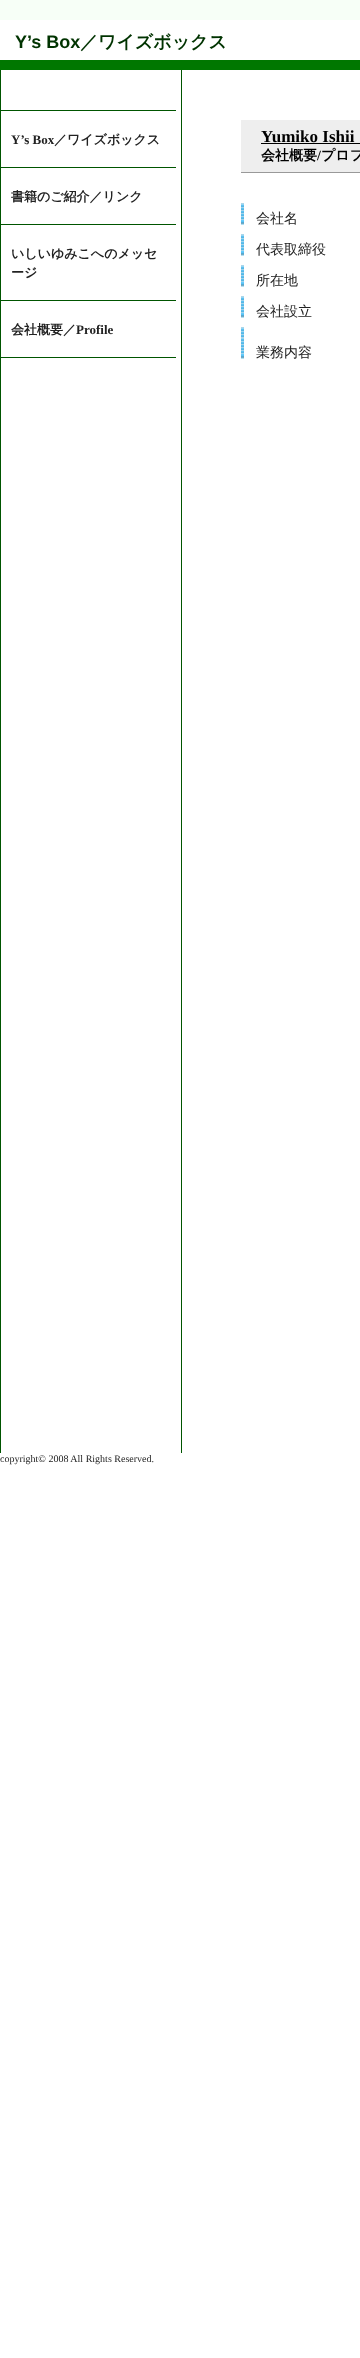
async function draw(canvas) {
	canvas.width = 360;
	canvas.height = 2358;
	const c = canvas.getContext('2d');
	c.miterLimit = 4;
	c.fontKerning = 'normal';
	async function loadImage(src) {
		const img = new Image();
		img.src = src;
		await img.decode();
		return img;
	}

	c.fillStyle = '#fff';
	c.fillRect(0, 0, 360, 2358);
	c.fillStyle = '#f7fff7';
	c.fillRect(0, 0, 360, 20);
	c.font = 'bold 18px Liberation Sans';
	c.fillStyle = '#030';
	c.fillText('Y’s Box', 15, 48);
	c.font = 'bold 18px WenQuanYi Zen Hei';
	c.fillText('／ワイズボックス', 80, 48);
	for (const [x, y, w, h, color] of [
		[0, 60, 360, 10, '#070'],
		[181, 70, 1, 1383, '#050'],
		[0, 70, 1, 1383, '#050'],
		[1, 110, 175, 1, '#050'],
	]) {
		c.fillStyle = color;
		c.fillRect(x, y, w, h);
	}
	c.font = 'bold 13px Liberation Serif';
	c.fillStyle = '#222';
	c.fillText('Y’s Box', 11, 144);
	c.font = 'bold 13px WenQuanYi Zen Hei';
	c.fillText('／ワイズボックス', 54, 144);
	c.fillStyle = '#050';
	c.fillRect(1, 167, 175, 1);
	c.fillStyle = '#222';
	c.fillText('書籍のご紹介／リンク', 11, 201);
	c.fillStyle = '#050';
	c.fillRect(1, 224, 175, 1);
	c.fillStyle = '#222';
	c.fillText('いしいゆみこへのメッセ', 11, 258);
	c.fillText('ージ', 11, 277);
	c.fillStyle = '#050';
	c.fillRect(1, 300, 175, 1);
	c.fillRect(1, 357, 175, 1);
	c.fillStyle = '#222';
	c.fillText('会社概要／', 11, 334);
	c.font = 'bold 13px Liberation Serif';
	c.fillText('Profile', 76, 334);
	c.fillStyle = '#eee';
	c.fillRect(241, 120, 119, 52);
	c.fillStyle = '#999';
	c.fillRect(241, 172, 119, 1);
	c.font = 'bold 17px Liberation Serif';
	c.fillStyle = '#000';
	c.fillText('Yumiko Ishii', 261, 142);
	c.fillRect(261, 143, 99, 1);
	c.font = 'bold 14px WenQuanYi Zen Hei';
	c.fillText('会社概要', 261, 160);
	c.font = 'bold 14px Liberation Serif';
	c.fillText('/', 317, 160);
	c.font = 'bold 14px WenQuanYi Zen Hei';
	c.fillText('プロフ', 321, 160);
	c.drawImage(await loadImage('img1.png'), 241, 203, 3, 22);
	c.font = '500 14px WenQuanYi Zen Hei';
	c.fillStyle = '#222';
	c.fillText('会社名', 256, 223);
	c.drawImage(await loadImage('img1.png'), 241, 234, 3, 22);
	c.fillText('代表取締役', 256, 254);
	c.drawImage(await loadImage('img1.png'), 241, 265, 3, 22);
	c.fillText('所在地', 256, 285);
	c.drawImage(await loadImage('img1.png'), 241, 296, 3, 22);
	c.fillText('会社設立', 256, 316);
	c.drawImage(await loadImage('img2.png'), 241, 327, 3, 10);
	c.drawImage(await loadImage('img1.png'), 241, 337, 3, 22);
	c.fillText('業務内容', 256, 357);
	c.font = '10px Liberation Serif';
	c.fillText('copyright© 2008 All Rights Reserved.', 0, 1462);
}

draw(document.querySelector('canvas'));
